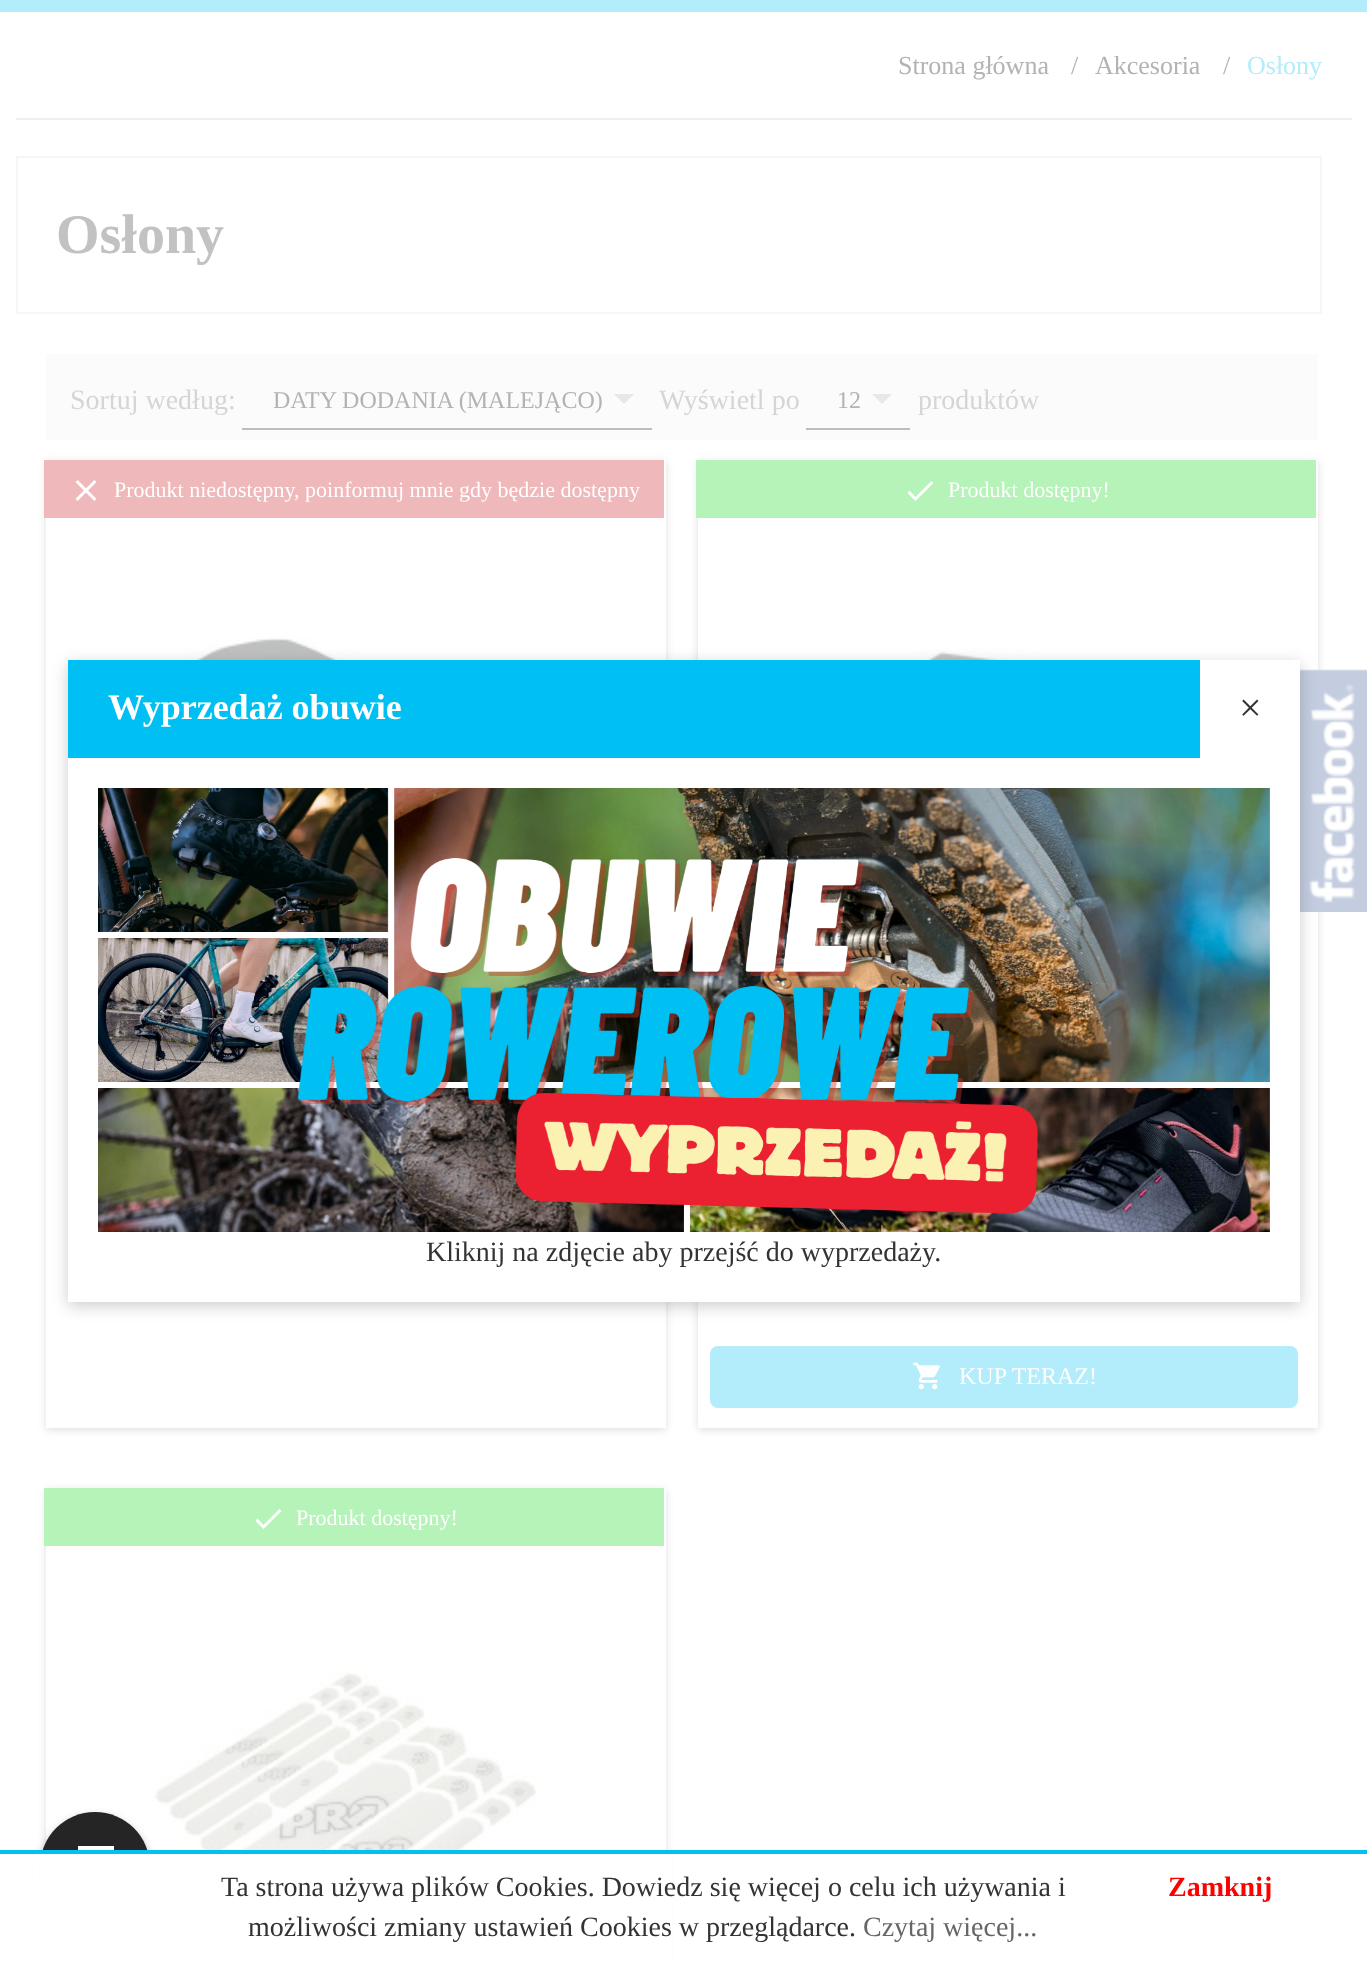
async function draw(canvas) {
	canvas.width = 1367;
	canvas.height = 1962;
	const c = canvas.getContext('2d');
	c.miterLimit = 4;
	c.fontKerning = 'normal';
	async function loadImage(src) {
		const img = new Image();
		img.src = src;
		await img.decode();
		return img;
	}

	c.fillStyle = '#fff';
	c.fillRect(0, 0, 1367, 1962);
	c.fillStyle = '#b3ecfb';
	c.fillRect(0, 0, 1367, 12);
	c.fillStyle = '#efefef';
	c.fillRect(16, 118, 1336, 2);
	c.font = '26px Liberation Serif';
	c.fillStyle = '#b3b3b3';
	for (const [text, x, y] of [
		['Strona główna', 898, 74],
		['/', 1071, 74],
		['Akcesoria', 1095, 74],
		['/', 1223, 74],
	]) {
		c.fillText(text, x, y);
	}
	c.fillStyle = '#b3ecfb';
	c.fillText('Osłony', 1247, 74);
	c.strokeStyle = '#f6f6f6';
	c.lineWidth = 2;
	c.strokeRect(17, 157, 1304, 156);
	c.font = 'bold 56px Liberation Serif';
	c.fillStyle = '#c2c2c2';
	c.fillText('Osłony', 56, 253);
	c.fillStyle = '#fbfbfb';
	c.fillRect(46, 354, 1272, 86);
	c.font = '28px Liberation Serif';
	c.fillStyle = '#d5d5d5';
	c.fillText('Sortuj według:', 70, 409);
	c.fillStyle = '#bdbdbd';
	c.fillRect(242, 428, 410, 2);
	c.font = '24px Liberation Serif';
	c.fillStyle = '#b3b3b3';
	c.fillText('DATY DODANIA (MALEJĄCO)', 273, 408);
	c.fillStyle = '#e7e7e7';
	c.beginPath();
	c.moveTo(614, 394);
	c.lineTo(634, 394);
	c.lineTo(624, 404);
	c.closePath();
	c.fill();
	c.font = '28px Liberation Serif';
	c.fillStyle = '#d5d5d5';
	c.fillText('Wyświetl po', 659, 409);
	c.fillStyle = '#bdbdbd';
	c.fillRect(806, 428, 104, 2);
	c.font = '24px Liberation Serif';
	c.fillStyle = '#b3b3b3';
	c.fillText('12', 837, 408);
	c.fillStyle = '#e7e7e7';
	c.beginPath();
	c.moveTo(872, 394);
	c.lineTo(892, 394);
	c.lineTo(882, 404);
	c.closePath();
	c.fill();
	c.font = '28px Liberation Serif';
	c.fillStyle = '#d5d5d5';
	c.fillText('produktów', 918, 409);
	c.save();
	c.beginPath();
	c.moveTo(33, 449);
	c.lineTo(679, 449);
	c.lineTo(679, 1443);
	c.lineTo(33, 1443);
	c.closePath();
	c.moveTo(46, 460);
	c.lineTo(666, 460);
	c.lineTo(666, 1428);
	c.lineTo(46, 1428);
	c.closePath();
	c.clip('evenodd');
	c.fillStyle = '#b3b3b36b';
	c.filter = 'blur(4px)';
	c.beginPath();
	c.rect(46, 462, 620, 968);
	c.fill();
	c.filter = 'none';
	c.restore();
	c.fillStyle = '#efb8ba';
	c.fillRect(44, 460, 620, 58);
	c.drawImage(await loadImage('img1.png'), 75, 480, 22, 21);
	c.font = '22px Liberation Serif';
	c.fillStyle = '#fff';
	c.fillText('Produkt niedostępny, poinformuj mnie gdy będzie dostępny', 114, 497);
	c.drawImage(await loadImage('img2.png'), 168, 636, 384, 24);
	c.save();
	c.beginPath();
	c.moveTo(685, 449);
	c.lineTo(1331, 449);
	c.lineTo(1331, 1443);
	c.lineTo(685, 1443);
	c.closePath();
	c.moveTo(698, 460);
	c.lineTo(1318, 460);
	c.lineTo(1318, 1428);
	c.lineTo(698, 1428);
	c.closePath();
	c.clip('evenodd');
	c.fillStyle = '#b3b3b36b';
	c.filter = 'blur(4px)';
	c.beginPath();
	c.rect(698, 462, 620, 968);
	c.fill();
	c.filter = 'none';
	c.restore();
	c.fillStyle = '#b6f3b9';
	c.fillRect(696, 460, 620, 58);
	c.fillStyle = '#fff';
	c.beginPath();
	c.moveTo(933.5, 483);
	c.lineTo(915.5, 501);
	c.lineTo(907.5, 493);
	c.lineTo(909.5, 490.5);
	c.lineTo(915.5, 497);
	c.lineTo(931.5, 481);
	c.closePath();
	c.fill();
	c.fillText('Produkt dostępny!', 948, 497);
	c.drawImage(await loadImage('img3.png'), 890, 651, 248, 9);
	c.fillStyle = '#b3ecfb';
	c.beginPath();
	c.roundRect(710, 1346, 588, 62, 8);
	c.fill();
	c.drawImage(await loadImage('img4.png'), 913, 1362, 27, 28);
	c.font = '24px Liberation Serif';
	c.fillStyle = '#fff';
	c.fillText('KUP TERAZ!', 959, 1384);
	c.save();
	c.beginPath();
	c.moveTo(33, 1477);
	c.lineTo(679, 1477);
	c.lineTo(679, 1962);
	c.lineTo(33, 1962);
	c.closePath();
	c.moveTo(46, 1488);
	c.lineTo(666, 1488);
	c.lineTo(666, 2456);
	c.lineTo(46, 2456);
	c.closePath();
	c.clip('evenodd');
	c.fillStyle = '#b3b3b36b';
	c.filter = 'blur(4px)';
	c.beginPath();
	c.rect(46, 1490, 620, 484);
	c.fill();
	c.filter = 'none';
	c.restore();
	c.fillStyle = '#b6f3b9';
	c.fillRect(44, 1488, 620, 58);
	c.fillStyle = '#fff';
	c.beginPath();
	c.moveTo(281.5, 1511);
	c.lineTo(263.5, 1529);
	c.lineTo(255.5, 1521);
	c.lineTo(257.5, 1518.5);
	c.lineTo(263.5, 1525);
	c.lineTo(279.5, 1509);
	c.closePath();
	c.fill();
	c.font = '22px Liberation Serif';
	c.fillText('Produkt dostępny!', 296, 1525);
	c.drawImage(await loadImage('img5.png'), 151, 1666, 386, 184);
	c.drawImage(await loadImage('img6.png'), 1300, 669, 67, 243);
	c.fillStyle = '#00000033';
	c.filter = 'blur(8px)';
	c.beginPath();
	c.rect(68, 664, 1232, 642);
	c.fill();
	c.filter = 'none';
	c.fillStyle = '#fff';
	c.fillRect(68, 758, 1232, 544);
	c.fillStyle = '#00bff3';
	c.fillRect(68, 660, 1132, 98);
	c.font = 'bold 36px Liberation Serif';
	c.fillStyle = '#fff';
	c.fillText('Wyprzedaż obuwie', 108, 719);
	c.fillRect(1200, 660, 100, 98);
	c.font = '40px Liberation Serif';
	c.fillStyle = '#333';
	c.fillText('×', 1239, 721);
	c.drawImage(await loadImage('img7.png'), 98, 788, 1172, 444);
	c.font = '28px Liberation Serif';
	c.fillText('Kliknij na zdjęcie aby przejść do wyprzedaży.', 426, 1261);
	c.fillStyle = '#0000004d';
	c.filter = 'blur(4px)';
	c.beginPath();
	c.roundRect(40, 1816, 110, 110, 55);
	c.fill();
	c.filter = 'none';
	c.fillStyle = '#252525';
	c.beginPath();
	c.arc(95, 1867, 55, 0, 2 * Math.PI);
	c.fill();
	c.fillStyle = '#fff';
	c.beginPath();
	c.moveTo(78, 1846);
	c.lineTo(114, 1846);
	c.lineTo(114, 1850);
	c.lineTo(100, 1864);
	c.lineTo(100, 1888);
	c.lineTo(92, 1880);
	c.lineTo(92, 1864);
	c.lineTo(78, 1850);
	c.closePath();
	c.fill();
	c.fillRect(33, 1854, 639, 108);
	c.fillStyle = '#00c2f2';
	c.fillRect(0, 1850, 1367, 4);
	c.fillStyle = '#333';
	c.fillText('Ta strona używa plików Cookies. Dowiedz się więcej o celu ich używania i', 221, 1896);
	c.fillText('możliwości zmiany ustawień Cookies w przeglądarce.', 248, 1936);
	c.fillStyle = '#666';
	c.fillText('Czytaj więcej...', 863, 1936);
	c.font = 'bold 28px Liberation Serif';
	c.fillStyle = '#f00';
	c.fillText('Zamknij', 1168, 1896);
}

draw(document.querySelector('canvas'));
